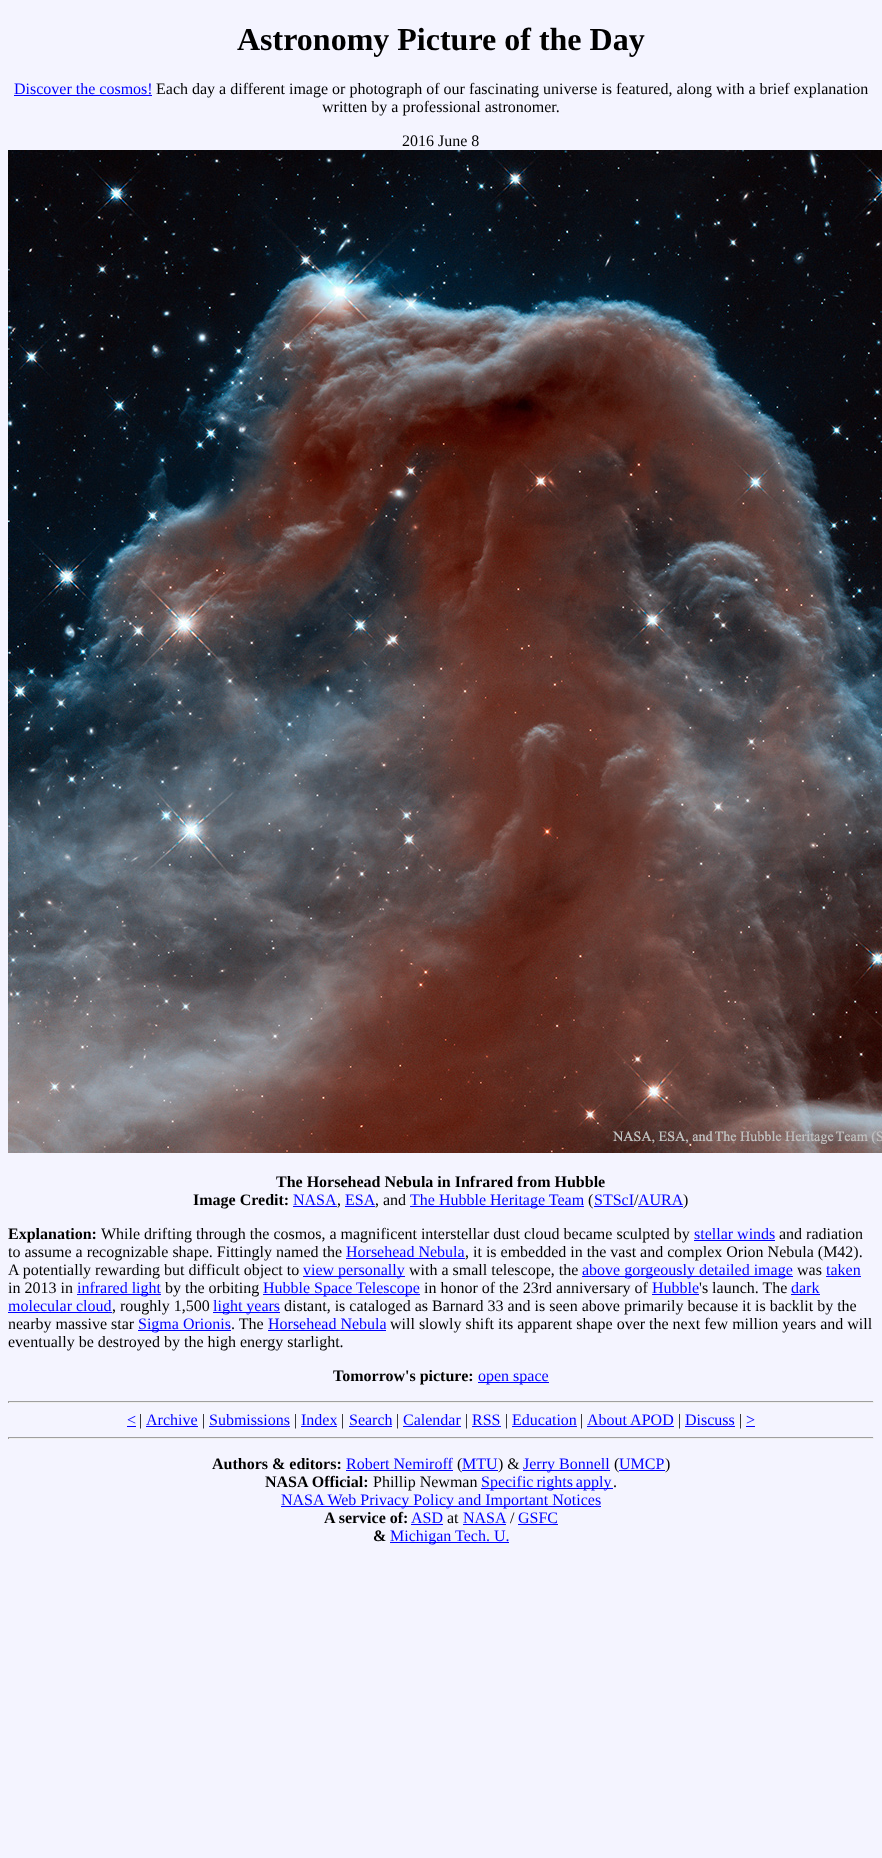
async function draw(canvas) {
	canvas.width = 882;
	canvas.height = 1858;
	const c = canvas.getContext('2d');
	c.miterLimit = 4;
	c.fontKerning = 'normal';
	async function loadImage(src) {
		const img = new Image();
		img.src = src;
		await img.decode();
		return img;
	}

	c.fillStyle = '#f4f4ff';
	c.fillRect(0, 0, 882, 1858);
	c.font = 'bold 32px Liberation Serif';
	c.fillStyle = '#000';
	c.fillText('Astronomy Picture of the Day', 237, 50);
	c.font = '16px Liberation Serif';
	c.fillStyle = '#00f';
	c.fillText('Discover the cosmos!', 14, 94);
	c.fillRect(14, 95, 138, 1);
	c.fillStyle = '#000';
	for (const [text, x, y] of [
		['Each day a different image or photograph of our fascinating universe is featured, along with a brief explanation', 156, 94],
		['written by a professional astronomer.', 322, 112],
		['2016 June 8', 402, 146],
	]) {
		c.fillText(text, x, y);
	}
	c.drawImage(await loadImage('img1.png'), 8, 150, 874, 1003);
	c.font = 'bold 16px Liberation Serif';
	c.fillText('The Horsehead Nebula in Infrared from Hubble', 276, 1187);
	c.fillText('Image Credit:', 193, 1205);
	c.font = '16px Liberation Serif';
	c.fillStyle = '#00f';
	c.fillText('NASA', 293, 1205);
	c.fillRect(293, 1206, 44, 1);
	c.fillStyle = '#000';
	c.fillText(',', 337, 1205);
	c.fillStyle = '#00f';
	c.fillText('ESA', 345, 1205);
	c.fillRect(345, 1206, 30, 1);
	c.fillStyle = '#000';
	c.fillText(', and', 375, 1205);
	c.fillStyle = '#00f';
	c.fillRect(410, 1206, 174, 1);
	c.fillText('The Hubble Heritage Team', 410, 1205);
	c.fillStyle = '#000';
	c.fillText('(', 588, 1205);
	c.fillStyle = '#00f';
	c.fillText('STScI', 594, 1205);
	c.fillRect(594, 1206, 40, 1);
	c.fillStyle = '#000';
	c.fillText('/', 634, 1205);
	c.fillStyle = '#00f';
	c.fillText('AURA', 638, 1205);
	c.fillRect(638, 1206, 45, 1);
	c.fillStyle = '#000';
	c.fillText(')', 683, 1205);
	c.font = 'bold 16px Liberation Serif';
	c.fillText('Explanation:', 8, 1239);
	c.font = '16px Liberation Serif';
	c.fillText('While drifting through the cosmos, a magnificent interstellar dust cloud became sculpted by', 101, 1239);
	c.fillStyle = '#00f';
	c.fillText('stellar winds', 694, 1239);
	c.fillRect(694, 1240, 81, 1);
	c.fillStyle = '#000';
	c.fillText('and radiation', 779, 1239);
	c.fillText('to assume a recognizable shape. Fittingly named the', 8, 1257);
	c.fillStyle = '#00f';
	c.fillText('Horsehead Nebula', 346, 1257);
	c.fillRect(346, 1258, 119, 1);
	c.fillStyle = '#000';
	c.fillText(', it is embedded in the vast and complex Orion Nebula (M42).', 465, 1257);
	c.fillText('A potentially rewarding but difficult object to', 8, 1275);
	c.fillStyle = '#00f';
	c.fillRect(303, 1276, 102, 1);
	c.fillText('view personally', 303, 1275);
	c.fillStyle = '#000';
	c.fillText('with a small telescope, the', 409, 1275);
	c.fillStyle = '#00f';
	c.fillRect(582, 1276, 211, 1);
	c.fillText('above gorgeously detailed image', 582, 1275);
	c.fillStyle = '#000';
	c.fillText('was', 797, 1275);
	c.fillStyle = '#00f';
	c.fillText('taken', 826, 1275);
	c.fillRect(826, 1276, 35, 1);
	c.fillStyle = '#000';
	c.fillText('in 2013 in', 8, 1293);
	c.fillStyle = '#00f';
	c.fillRect(77, 1294, 84, 1);
	c.fillText('infrared light', 77, 1293);
	c.fillStyle = '#000';
	c.fillText('by the orbiting', 165, 1293);
	c.fillStyle = '#00f';
	c.fillRect(263, 1294, 157, 1);
	c.fillText('Hubble Space Telescope', 263, 1293);
	c.fillStyle = '#000';
	c.fillText('in honor of the 23rd anniversary of', 424, 1293);
	c.fillStyle = '#00f';
	c.fillText('Hubble', 652, 1293);
	c.fillRect(652, 1294, 47, 1);
	c.fillStyle = '#000';
	c.fillText('\'s launch. The', 699, 1293);
	c.fillStyle = '#00f';
	c.fillText('dark', 791, 1293);
	c.fillRect(791, 1294, 29, 1);
	c.fillText('molecular cloud', 8, 1311);
	c.fillRect(8, 1312, 104, 1);
	c.fillStyle = '#000';
	c.fillText(', roughly 1,500', 112, 1311);
	c.fillStyle = '#00f';
	c.fillRect(213, 1312, 67, 1);
	c.fillText('light years', 213, 1311);
	c.fillStyle = '#000';
	c.fillText('distant, is cataloged as Barnard 33 and is seen above primarily because it is backlit by the', 284, 1311);
	c.fillText('nearby massive star', 8, 1329);
	c.fillStyle = '#00f';
	c.fillRect(138, 1330, 93, 1);
	c.fillText('Sigma Orionis', 138, 1329);
	c.fillStyle = '#000';
	c.fillText('. The', 231, 1329);
	c.fillStyle = '#00f';
	c.fillText('Horsehead Nebula', 268, 1329);
	c.fillRect(268, 1330, 118, 1);
	c.fillStyle = '#000';
	c.fillText('will slowly shift its apparent shape over the next few million years and will', 390, 1329);
	c.fillText('eventually be destroyed by the high energy starlight.', 8, 1347);
	c.font = 'bold 16px Liberation Serif';
	c.fillText('Tomorrow\'s picture:', 333, 1381);
	c.fillStyle = '#00f';
	c.fillRect(478, 1382, 71, 1);
	c.font = '16px Liberation Serif';
	c.fillText('open space', 478, 1381);
	for (const [x, y, w, h, color] of [
		[8, 1401, 866, 1, '#9f9f9f'],
		[873, 1401, 1, 2, '#eee'],
		[8, 1402, 866, 1, '#eee'],
		[8, 1401, 1, 2, '#9f9f9f'],
	]) {
		c.fillStyle = color;
		c.fillRect(x, y, w, h);
	}
	c.fillStyle = '#00f';
	c.fillText('<', 127, 1425);
	c.fillRect(127, 1426, 9, 1);
	c.fillStyle = '#000';
	c.fillText('|', 139, 1425);
	c.fillStyle = '#00f';
	c.fillText('Archive', 146, 1425);
	c.fillRect(146, 1426, 52, 1);
	c.fillStyle = '#000';
	c.fillText('|', 202, 1425);
	c.fillStyle = '#00f';
	c.fillText('Submissions', 209, 1425);
	c.fillRect(209, 1426, 81, 1);
	c.fillStyle = '#000';
	c.fillText('|', 294, 1425);
	c.fillStyle = '#00f';
	c.fillText('Index', 301, 1425);
	c.fillRect(301, 1426, 36, 1);
	c.fillStyle = '#000';
	c.fillText('|', 341, 1425);
	c.fillStyle = '#00f';
	c.fillText('Search', 349, 1425);
	c.fillRect(349, 1426, 43, 1);
	c.fillStyle = '#000';
	c.fillText('|', 396, 1425);
	c.fillStyle = '#00f';
	c.fillText('Calendar', 403, 1425);
	c.fillRect(403, 1426, 58, 1);
	c.fillStyle = '#000';
	c.fillText('|', 465, 1425);
	c.fillStyle = '#00f';
	c.fillText('RSS', 472, 1425);
	c.fillRect(472, 1426, 29, 1);
	c.fillStyle = '#000';
	c.fillText('|', 505, 1425);
	c.fillStyle = '#00f';
	c.fillText('Education', 512, 1425);
	c.fillRect(512, 1426, 65, 1);
	c.fillStyle = '#000';
	c.fillText('|', 580, 1425);
	c.fillStyle = '#00f';
	c.fillText('About APOD', 587, 1425);
	c.fillRect(587, 1426, 87, 1);
	c.fillStyle = '#000';
	c.fillText('|', 678, 1425);
	c.fillStyle = '#00f';
	c.fillText('Discuss', 685, 1425);
	c.fillRect(685, 1426, 50, 1);
	c.fillStyle = '#000';
	c.fillText('|', 739, 1425);
	c.fillStyle = '#00f';
	c.fillText('>', 746, 1425);
	for (const [x, y, w, h, color] of [
		[746, 1426, 9, 1, '#00f'],
		[8, 1437, 866, 1, '#9f9f9f'],
		[873, 1437, 1, 2, '#eee'],
		[8, 1438, 866, 1, '#eee'],
		[8, 1437, 1, 2, '#9f9f9f'],
	]) {
		c.fillStyle = color;
		c.fillRect(x, y, w, h);
	}
	c.font = 'bold 16px Liberation Serif';
	c.fillStyle = '#000';
	c.fillText('Authors & editors:', 212, 1469);
	c.font = '16px Liberation Serif';
	c.fillStyle = '#00f';
	c.fillText('Robert Nemiroff', 346, 1469);
	c.fillRect(346, 1470, 107, 1);
	c.fillStyle = '#000';
	c.fillText('(', 457, 1469);
	c.fillStyle = '#00f';
	c.fillText('MTU', 462, 1469);
	c.fillRect(462, 1470, 36, 1);
	c.fillStyle = '#000';
	c.fillText(') &', 498, 1469);
	c.fillStyle = '#00f';
	c.fillRect(523, 1470, 87, 1);
	c.fillText('Jerry Bonnell', 523, 1469);
	c.fillStyle = '#000';
	c.fillText('(', 614, 1469);
	c.fillStyle = '#00f';
	c.fillText('UMCP', 619, 1469);
	c.fillRect(619, 1470, 46, 1);
	c.fillStyle = '#000';
	c.fillText(')', 665, 1469);
	c.font = 'bold 16px Liberation Serif';
	c.fillText('NASA Official:', 265, 1487);
	c.font = '16px Liberation Serif';
	c.fillText('Phillip Newman', 373, 1487);
	c.fillStyle = '#00f';
	c.fillRect(481, 1488, 132, 1);
	c.wordSpacing = '-1px';
	c.fillText('Specific rights apply', 481, 1487);
	c.wordSpacing = '0px';
	c.fillStyle = '#000';
	c.fillText('.', 613, 1487);
	c.fillStyle = '#00f';
	c.fillRect(281, 1506, 320, 1);
	c.fillText('NASA Web Privacy Policy and Important Notices', 281, 1505);
	c.font = 'bold 16px Liberation Serif';
	c.fillStyle = '#000';
	c.fillText('A service of:', 324, 1523);
	c.font = '16px Liberation Serif';
	c.fillStyle = '#00f';
	c.fillText('ASD', 411, 1523);
	c.fillRect(411, 1524, 32, 1);
	c.fillStyle = '#000';
	c.fillText('at', 447, 1523);
	c.fillStyle = '#00f';
	c.fillText('NASA', 463, 1523);
	c.fillRect(463, 1524, 43, 1);
	c.fillStyle = '#000';
	c.fillText('/', 510, 1523);
	c.fillStyle = '#00f';
	c.fillText('GSFC', 518, 1523);
	c.fillRect(518, 1524, 40, 1);
	c.font = 'bold 16px Liberation Serif';
	c.fillStyle = '#000';
	c.fillText('&', 373, 1541);
	c.fillStyle = '#00f';
	c.fillRect(390, 1542, 119, 1);
	c.font = '16px Liberation Serif';
	c.fillText('Michigan Tech. U.', 390, 1541);
}

draw(document.querySelector('canvas'));
